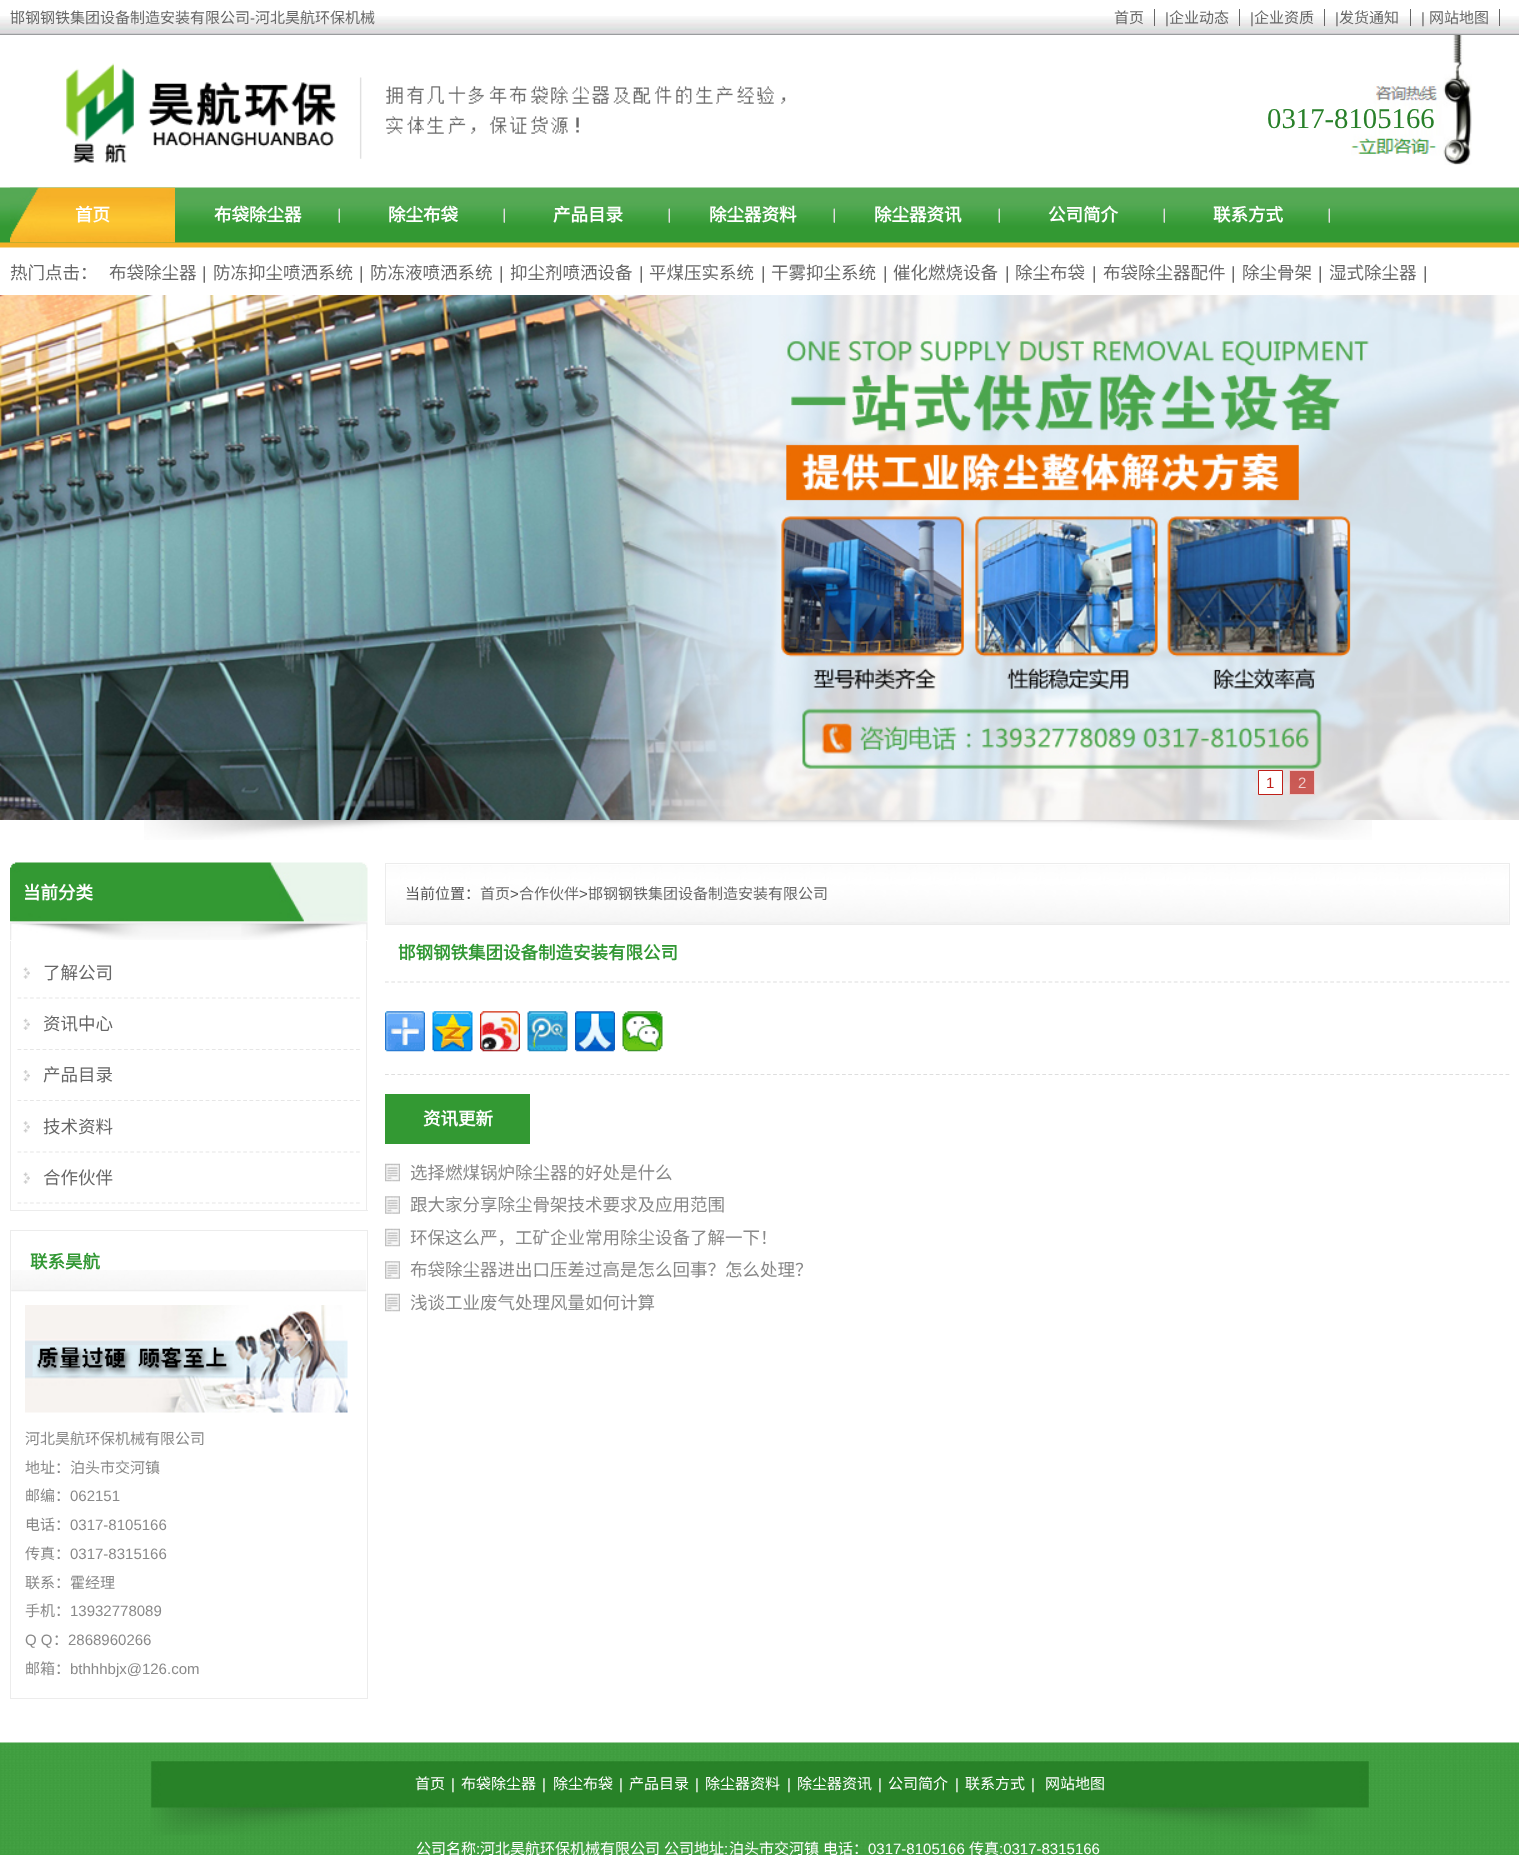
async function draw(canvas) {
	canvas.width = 1519;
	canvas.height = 1855;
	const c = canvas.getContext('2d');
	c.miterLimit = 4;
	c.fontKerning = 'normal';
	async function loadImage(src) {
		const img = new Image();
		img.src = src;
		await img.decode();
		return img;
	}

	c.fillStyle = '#fff';
	c.fillRect(0, 0, 1519, 1855);
	c.drawImage(await loadImage('img1.png'), 0, 16, 1519, 19);
	c.font = '15px Noto Sans CJK SC';
	c.fillStyle = '#676767';
	c.fillText('邯钢钢铁集团设备制造安装有限公司', 10, 23);
	c.font = '15px Liberation Sans';
	c.fillText('-', 250, 23);
	c.font = '15px Noto Sans CJK SC';
	c.fillText('河北昊航环保机械', 255, 23);
	c.fillText('首页', 1114, 23);
	c.fillRect(1154, 9, 1, 17);
	c.font = '15px Liberation Sans';
	c.fillText('|', 1165, 23);
	c.font = '15px Noto Sans CJK SC';
	c.fillText('企业动态', 1169, 23);
	c.fillRect(1239, 9, 1, 17);
	c.font = '15px Liberation Sans';
	c.fillText('|', 1250, 23);
	c.font = '15px Noto Sans CJK SC';
	c.fillText('企业资质', 1254, 23);
	c.fillRect(1324, 9, 1, 17);
	c.font = '15px Liberation Sans';
	c.fillText('|', 1335, 23);
	c.font = '15px Noto Sans CJK SC';
	c.fillText('发货通知', 1339, 23);
	c.fillRect(1410, 9, 1, 17);
	c.font = '15px Liberation Sans';
	c.fillText('|', 1421, 23);
	c.font = '15px Noto Sans CJK SC';
	c.fillText('网站地图', 1429, 23);
	c.fillRect(1499, 9, 1, 17);
	c.drawImage(await loadImage('img2.png'), 66, 63, 720, 100);
	c.drawImage(await loadImage('img3.png'), 1351, 35, 121, 130);
	c.font = '28.75px Liberation Serif';
	c.fillStyle = '#288029';
	c.fillText('0317-8105166', 1267, 128);
	c.drawImage(await loadImage('img4.png'), 0, 187, 1519, 61);
	c.drawImage(await loadImage('img5.png'), 10, 187, 165, 56);
	c.font = 'bold 17.5px Noto Sans CJK SC';
	c.fillStyle = '#fff';
	c.fillText('首页', 75, 221);
	c.drawImage(await loadImage('img6.png'), 338, 208, 2, 15);
	c.drawImage(await loadImage('img7.png'), 338, 208, 2, 15);
	c.fillText('布袋除尘器', 214, 221);
	c.drawImage(await loadImage('img6.png'), 503, 208, 2, 15);
	c.drawImage(await loadImage('img7.png'), 503, 208, 2, 15);
	c.fillText('除尘布袋', 388, 221);
	c.drawImage(await loadImage('img6.png'), 668, 208, 2, 15);
	c.drawImage(await loadImage('img7.png'), 668, 208, 2, 15);
	c.fillText('产品目录', 553, 221);
	c.drawImage(await loadImage('img8.png'), 833, 208, 2, 15);
	c.drawImage(await loadImage('img7.png'), 833, 208, 2, 15);
	c.fillText('除尘器资料', 709, 221);
	c.drawImage(await loadImage('img8.png'), 998, 208, 2, 15);
	c.drawImage(await loadImage('img7.png'), 998, 208, 2, 15);
	c.fillText('除尘器资讯', 874, 221);
	c.drawImage(await loadImage('img6.png'), 1163, 208, 2, 15);
	c.drawImage(await loadImage('img7.png'), 1163, 208, 2, 15);
	c.fillText('公司简介', 1048, 221);
	c.drawImage(await loadImage('img8.png'), 1328, 208, 2, 15);
	c.drawImage(await loadImage('img7.png'), 1328, 208, 2, 15);
	c.fillText('联系方式', 1213, 221);
	c.font = '17.5px Noto Sans CJK SC';
	c.fillStyle = '#676767';
	c.fillText('热门点击：', 10, 279);
	c.fillText('布袋除尘器', 109, 279);
	c.font = '17.5px Liberation Sans';
	c.fillText('|', 202, 279);
	c.font = '17.5px Noto Sans CJK SC';
	c.fillText('防冻抑尘喷洒系统', 213, 279);
	c.font = '17.5px Liberation Sans';
	c.fillText('|', 359, 279);
	c.font = '17.5px Noto Sans CJK SC';
	c.fillText('防冻液喷洒系统', 370, 279);
	c.font = '17.5px Liberation Sans';
	c.fillText('|', 499, 279);
	c.font = '17.5px Noto Sans CJK SC';
	c.fillText('抑尘剂喷洒设备', 510, 279);
	c.font = '17.5px Liberation Sans';
	c.fillText('|', 639, 279);
	c.font = '17.5px Noto Sans CJK SC';
	c.fillText('平煤压实系统', 649, 279);
	c.font = '17.5px Liberation Sans';
	c.fillText('|', 761, 279);
	c.font = '17.5px Noto Sans CJK SC';
	c.fillText('干雾抑尘系统', 771, 279);
	c.font = '17.5px Liberation Sans';
	c.fillText('|', 883, 279);
	c.font = '17.5px Noto Sans CJK SC';
	c.fillText('催化燃烧设备', 893, 279);
	c.font = '17.5px Liberation Sans';
	c.fillText('|', 1005, 279);
	c.font = '17.5px Noto Sans CJK SC';
	c.fillText('除尘布袋', 1015, 279);
	c.font = '17.5px Liberation Sans';
	c.fillText('|', 1092, 279);
	c.font = '17.5px Noto Sans CJK SC';
	c.fillText('布袋除尘器配件', 1103, 279);
	c.font = '17.5px Liberation Sans';
	c.fillText('|', 1231, 279);
	c.font = '17.5px Noto Sans CJK SC';
	c.fillText('除尘骨架', 1242, 279);
	c.font = '17.5px Liberation Sans';
	c.fillText('|', 1318, 279);
	c.font = '17.5px Noto Sans CJK SC';
	c.fillText('湿式除尘器', 1329, 279);
	c.font = '17.5px Liberation Sans';
	c.fillText('|', 1423, 279);
	c.drawImage(await loadImage('img9.png'), 0, 295, 1519, 525);
	c.fillStyle = '#fff';
	c.beginPath();
	c.rect(1258.5, 770.5, 24, 24);
	c.fill();
	c.strokeStyle = '#bf1f18';
	c.stroke();
	c.font = '15px Liberation Sans';
	c.fillStyle = '#bf1f18';
	c.fillText('1', 1266, 788);
	c.fillStyle = '#bf1f18b3';
	c.fillRect(1289, 770, 26, 25);
	c.strokeStyle = '#ffffffb3';
	c.strokeRect(1289.5, 770.5, 25, 24);
	c.fillStyle = '#efcdcc';
	c.fillText('2', 1298, 788);
	c.drawImage(await loadImage('img10.png'), 144, 820, 1228, 20);
	c.drawImage(await loadImage('img11.png'), 10, 862, 358, 78);
	c.font = 'bold 17.5px Noto Sans CJK SC';
	c.fillStyle = '#fff';
	c.fillText('当前分类', 23, 899);
	for (const [x, y, w, h, color] of [
		[366, 941, 1, 270, '#ececec'],
		[10, 1210, 358, 1, '#ececec'],
		[10, 941, 1, 270, '#ececec'],
	]) {
		c.fillStyle = color;
		c.fillRect(x, y, w, h);
	}
	c.drawImage(await loadImage('img12.png'), 23, 967, 7, 12);
	c.beginPath();
	c.moveTo(17.5, 998);
	c.lineTo(360, 998);
	c.strokeStyle = '#e6e6e6';
	c.lineWidth = 1.2;
	c.setLineDash([3.75, 2.52]);
	c.stroke();
	c.font = '17.5px Noto Sans CJK SC';
	c.fillStyle = '#676767';
	c.fillText('了解公司', 43, 979);
	c.drawImage(await loadImage('img13.png'), 23, 1018, 7, 12);
	c.beginPath();
	c.moveTo(17.5, 1049.5);
	c.lineTo(360, 1049.5);
	c.stroke();
	c.fillText('资讯中心', 43, 1030);
	c.drawImage(await loadImage('img14.png'), 23, 1070, 7, 12);
	c.beginPath();
	c.moveTo(17.5, 1100.5);
	c.lineTo(360, 1100.5);
	c.stroke();
	c.fillText('产品目录', 43, 1081);
	c.drawImage(await loadImage('img15.png'), 23, 1121, 7, 12);
	c.beginPath();
	c.moveTo(17.5, 1152);
	c.lineTo(360, 1152);
	c.stroke();
	c.fillText('技术资料', 43, 1133);
	c.drawImage(await loadImage('img16.png'), 23, 1172, 7, 12);
	c.beginPath();
	c.moveTo(17.5, 1203);
	c.lineTo(360, 1203);
	c.stroke();
	c.fillText('合作伙伴', 43, 1184);
	c.strokeStyle = '#ececec';
	c.lineWidth = 1;
	c.setLineDash([]);
	c.strokeRect(10.5, 1230.5, 357, 468);
	c.drawImage(await loadImage('img17.png'), 11, 1270, 356, 22);
	c.font = 'bold 17.5px Noto Sans CJK SC';
	c.fillStyle = '#329834';
	c.fillText('联系昊航', 30, 1268);
	c.drawImage(await loadImage('img18.png'), 25, 1305, 323, 108);
	c.font = '15px Noto Sans CJK SC';
	c.fillStyle = '#898989';
	for (const [text, x, y] of [
		['河北昊航环保机械有限公司', 25, 1444],
		['地址：泊头市交河镇', 25, 1473],
		['邮编：', 25, 1501],
	]) {
		c.fillText(text, x, y);
	}
	c.font = '15px Liberation Sans';
	c.fillText('062151', 70, 1501);
	c.font = '15px Noto Sans CJK SC';
	c.fillText('电话：', 25, 1530);
	c.font = '15px Liberation Sans';
	c.fillText('0317-8105166', 70, 1530);
	c.font = '15px Noto Sans CJK SC';
	c.fillText('传真：', 25, 1559);
	c.font = '15px Liberation Sans';
	c.fillText('0317-8315166', 70, 1559);
	c.font = '15px Noto Sans CJK SC';
	c.fillText('联系：霍经理', 25, 1588);
	c.fillText('手机：', 25, 1616);
	c.font = '15px Liberation Sans';
	c.fillText('13932778089', 70, 1616);
	c.fillText('Q Q', 25, 1645);
	c.font = '15px Noto Sans CJK SC';
	c.fillText('：', 53, 1645);
	c.font = '15px Liberation Sans';
	c.fillText('2868960266', 68, 1645);
	c.font = '15px Noto Sans CJK SC';
	c.fillText('邮箱：', 25, 1674);
	c.font = '15px Liberation Sans';
	c.fillText('bthhhbjx@126.com', 70, 1674);
	c.strokeRect(385.5, 863.5, 1124, 61);
	c.drawImage(await loadImage('img19.png'), 386, 865, 1123, 59);
	c.font = '15px Noto Sans CJK SC';
	c.fillStyle = '#555';
	c.fillText('当前位置：', 405, 899);
	c.fillStyle = '#676767';
	c.fillText('首页', 480, 899);
	c.font = '15px Liberation Sans';
	c.fillStyle = '#555';
	c.fillText('>', 510, 899);
	c.font = '15px Noto Sans CJK SC';
	c.fillStyle = '#676767';
	c.fillText('合作伙伴', 519, 899);
	c.font = '15px Liberation Sans';
	c.fillStyle = '#555';
	c.fillText('>', 579, 899);
	c.font = '15px Noto Sans CJK SC';
	c.fillStyle = '#676767';
	c.fillText('邯钢钢铁集团设备制造安装有限公司', 588, 899);
	c.beginPath();
	c.moveTo(385, 982);
	c.lineTo(1510, 982);
	c.strokeStyle = '#dedede';
	c.lineWidth = 1.2;
	c.setLineDash([3.75, 2.51]);
	c.stroke();
	c.font = 'bold 17.5px Noto Sans CJK SC';
	c.fillStyle = '#329834';
	c.fillText('邯钢钢铁集团设备制造安装有限公司', 398, 959);
	c.beginPath();
	c.moveTo(385, 1074.5);
	c.lineTo(1510, 1074.5);
	c.stroke();
	c.drawImage(await loadImage('img20.png'), 385, 1011, 40, 41);
	c.drawImage(await loadImage('img21.png'), 432, 1011, 41, 41);
	c.drawImage(await loadImage('img22.png'), 480, 1011, 40, 41);
	c.drawImage(await loadImage('img23.png'), 527, 1011, 41, 41);
	c.drawImage(await loadImage('img24.png'), 575, 1011, 40, 41);
	c.drawImage(await loadImage('img25.png'), 622, 1011, 41, 41);
	c.fillStyle = '#393';
	c.fillRect(385, 1094, 145, 50);
	c.fillStyle = '#fff';
	c.fillText('资讯更新', 423, 1125);
	c.drawImage(await loadImage('img26.png'), 385, 1163, 15, 19);
	c.font = '17.5px Noto Sans CJK SC';
	c.fillStyle = '#898989';
	c.fillText('选择燃煤锅炉除尘器的好处是什么', 410, 1179);
	c.drawImage(await loadImage('img27.png'), 385, 1196, 15, 18);
	c.fillText('跟大家分享除尘骨架技术要求及应用范围', 410, 1211);
	c.drawImage(await loadImage('img28.png'), 385, 1228, 15, 19);
	c.fillText('环保这么严，工矿企业常用除尘设备了解一下！', 410, 1244);
	c.drawImage(await loadImage('img27.png'), 385, 1261, 15, 18);
	c.fillText('布袋除尘器进出口压差过高是怎么回事？怎么处理？', 410, 1276);
	c.drawImage(await loadImage('img28.png'), 385, 1293, 15, 19);
	c.fillText('浅谈工业废气处理风量如何计算', 410, 1309);
	c.drawImage(await loadImage('img29.png'), 0, 1742, 1519, 113);
	c.drawImage(await loadImage('img30.png'), 151, 1761, 1218, 74);
	c.font = '15px Noto Sans CJK SC';
	c.fillStyle = '#fff';
	c.fillText('首页', 415, 1789);
	c.font = '15px Liberation Sans';
	c.fillText('|', 451, 1789);
	c.font = '15px Noto Sans CJK SC';
	c.fillText('布袋除尘器', 461, 1789);
	c.font = '15px Liberation Sans';
	c.fillText('|', 542, 1789);
	c.font = '15px Noto Sans CJK SC';
	c.fillText('除尘布袋', 553, 1789);
	c.font = '15px Liberation Sans';
	c.fillText('|', 619, 1789);
	c.font = '15px Noto Sans CJK SC';
	c.fillText('产品目录', 629, 1789);
	c.font = '15px Liberation Sans';
	c.fillText('|', 695, 1789);
	c.font = '15px Noto Sans CJK SC';
	c.fillText('除尘器资料', 705, 1789);
	c.font = '15px Liberation Sans';
	c.fillText('|', 787, 1789);
	c.font = '15px Noto Sans CJK SC';
	c.fillText('除尘器资讯', 797, 1789);
	c.font = '15px Liberation Sans';
	c.fillText('|', 878, 1789);
	c.font = '15px Noto Sans CJK SC';
	c.fillText('公司简介', 888, 1789);
	c.font = '15px Liberation Sans';
	c.fillText('|', 955, 1789);
	c.font = '15px Noto Sans CJK SC';
	c.fillText('联系方式', 965, 1789);
	c.font = '15px Liberation Sans';
	c.fillText('|', 1031, 1789);
	c.font = '15px Noto Sans CJK SC';
	c.fillText('网站地图', 1045, 1789);
	c.fillText('公司名称', 416, 1854);
	c.font = '15px Liberation Sans';
	c.fillText(':', 476, 1854);
	c.font = '15px Noto Sans CJK SC';
	c.fillText('河北昊航环保机械有限公司', 480, 1854);
	c.fillText('公司地址', 664, 1854);
	c.font = '15px Liberation Sans';
	c.fillText(':', 724, 1854);
	c.font = '15px Noto Sans CJK SC';
	c.fillText('泊头市交河镇', 729, 1854);
	c.fillText('电话：', 823, 1854);
	c.font = '15px Liberation Sans';
	c.fillText('0317-8105166', 868, 1854);
	c.font = '15px Noto Sans CJK SC';
	c.fillText('传真', 969, 1854);
	c.font = '15px Liberation Sans';
	c.fillText(':0317-8315166', 999, 1854);
}

draw(document.querySelector('canvas'));
